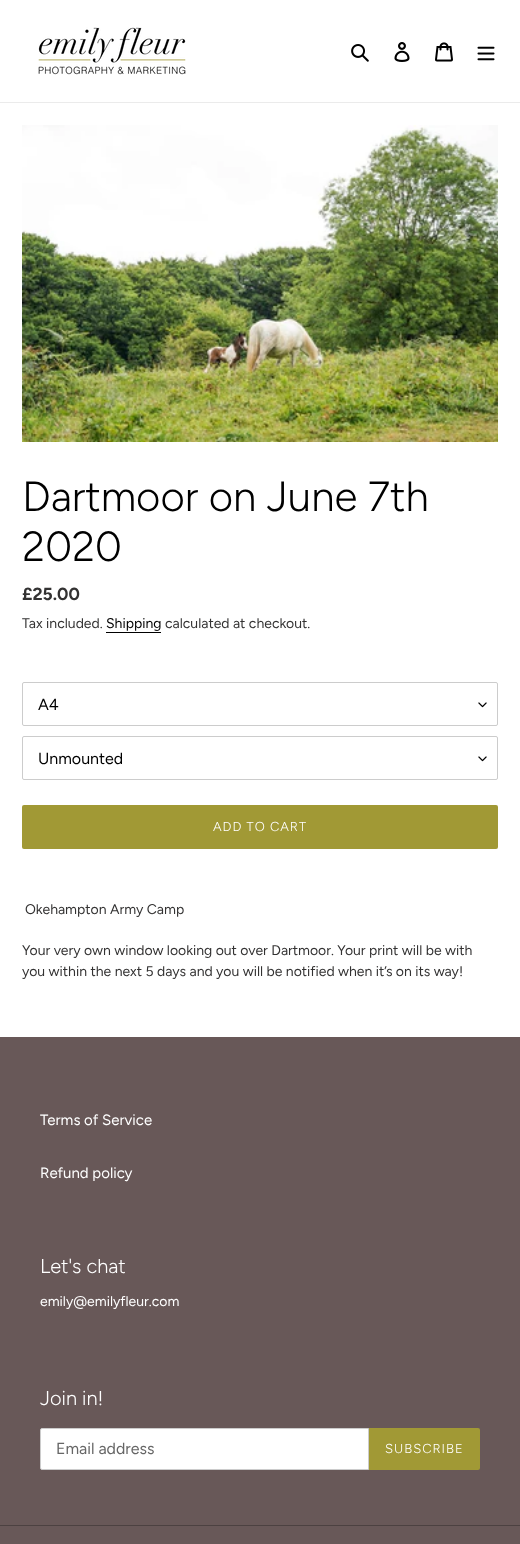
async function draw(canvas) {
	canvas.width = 520;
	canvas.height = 1544;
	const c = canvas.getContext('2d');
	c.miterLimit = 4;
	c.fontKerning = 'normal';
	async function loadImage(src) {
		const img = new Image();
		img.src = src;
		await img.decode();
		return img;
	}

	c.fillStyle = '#fff';
	c.fillRect(0, 0, 520, 1544);
	c.fillStyle = '#ebebeb';
	c.fillRect(0, 102, 520, 1);
	c.drawImage(await loadImage('img1.png'), 38, 27, 148, 48);
	c.drawImage(await loadImage('img2.png'), 351, 44, 18, 18);
	c.drawImage(await loadImage('img3.png'), 394, 42, 16, 20);
	c.drawImage(await loadImage('img4.png'), 435, 42, 18, 20);
	c.drawImage(await loadImage('img5.png'), 477, 46, 18, 15);
	c.drawImage(await loadImage('img6.png'), 22, 125, 476, 317);
	c.font = '300 42px Figtree';
	c.fillStyle = '#000';
	c.fillText('Dartmoor on June 7th', 22, 511);
	c.fillText('2020', 22, 561);
	c.font = 'bold 17.5px Figtree';
	c.fillStyle = '#333232';
	c.fillText('£25.00', 22, 600);
	c.font = '14px Figtree';
	c.fillText('Tax included.', 22, 628);
	c.fillStyle = '#000';
	c.fillText('Shipping', 106, 628);
	c.fillRect(106, 632, 55, 1);
	c.fillStyle = '#333232';
	c.fillText('calculated at checkout.', 165, 628);
	c.drawImage(await loadImage('img7.png'), 478, 702, 9, 6);
	c.beginPath();
	c.roundRect(22.5, 682.5, 475, 43, 1.5);
	c.strokeStyle = '#ccc';
	c.stroke();
	c.font = '16px Figtree';
	c.fillStyle = '#000';
	c.fillText('A4', 38, 710);
	c.drawImage(await loadImage('img7.png'), 478, 756, 9, 6);
	c.beginPath();
	c.roundRect(22.5, 736.5, 475, 43, 1.5);
	c.stroke();
	c.fillText('Unmounted', 38, 764);
	c.fillStyle = '#a19935';
	c.beginPath();
	c.roundRect(22, 805, 476, 44, 2);
	c.fill();
	c.letterSpacing = '1px';
	c.font = '300 13px Figtree';
	c.fillStyle = '#fff';
	c.fillText('ADD TO CART', 213, 831);
	c.letterSpacing = '0px';
	c.font = '14px Figtree';
	c.fillStyle = '#333232';
	for (const [text, x, y] of [
		['Okehampton Army Camp', 25, 914],
		['Your very own window looking out over Dartmoor. Your print will be with', 22, 955],
		['you within the next 5 days and you will be notified when it’s on its way!', 22, 976],
	]) {
		c.fillText(text, x, y);
	}
	c.fillStyle = '#685858';
	c.fillRect(0, 1037, 520, 507);
	c.font = '15px Figtree';
	c.fillStyle = '#fff';
	c.fillText('Terms of Service', 40, 1125);
	c.fillText('Refund policy', 40, 1178);
	c.font = '300 20px Figtree';
	c.fillText('Let\'s chat', 40, 1273);
	c.font = '14px Figtree';
	c.fillText('emily@emilyfleur.com', 40, 1306);
	c.font = '300 20px Figtree';
	c.fillText('Join in!', 40, 1405);
	c.beginPath();
	c.roundRect(40.5, 1428.5, 328, 41, [1.5, 0, 0, 1.5]);
	c.fill();
	c.stroke();
	c.font = '16px Figtree';
	c.fillStyle = '#666';
	c.fillText('Email address', 56, 1454);
	c.fillStyle = '#a19935';
	c.beginPath();
	c.roundRect(369, 1428, 111, 42, [0, 2, 2, 0]);
	c.fill();
	c.letterSpacing = '1px';
	c.font = '300 13px Figtree';
	c.fillStyle = '#fff';
	c.fillText('SUBSCRIBE', 385, 1453);
	c.fillStyle = '#4c4141';
	c.fillRect(0, 1525, 520, 1);
}

draw(document.querySelector('canvas'));
